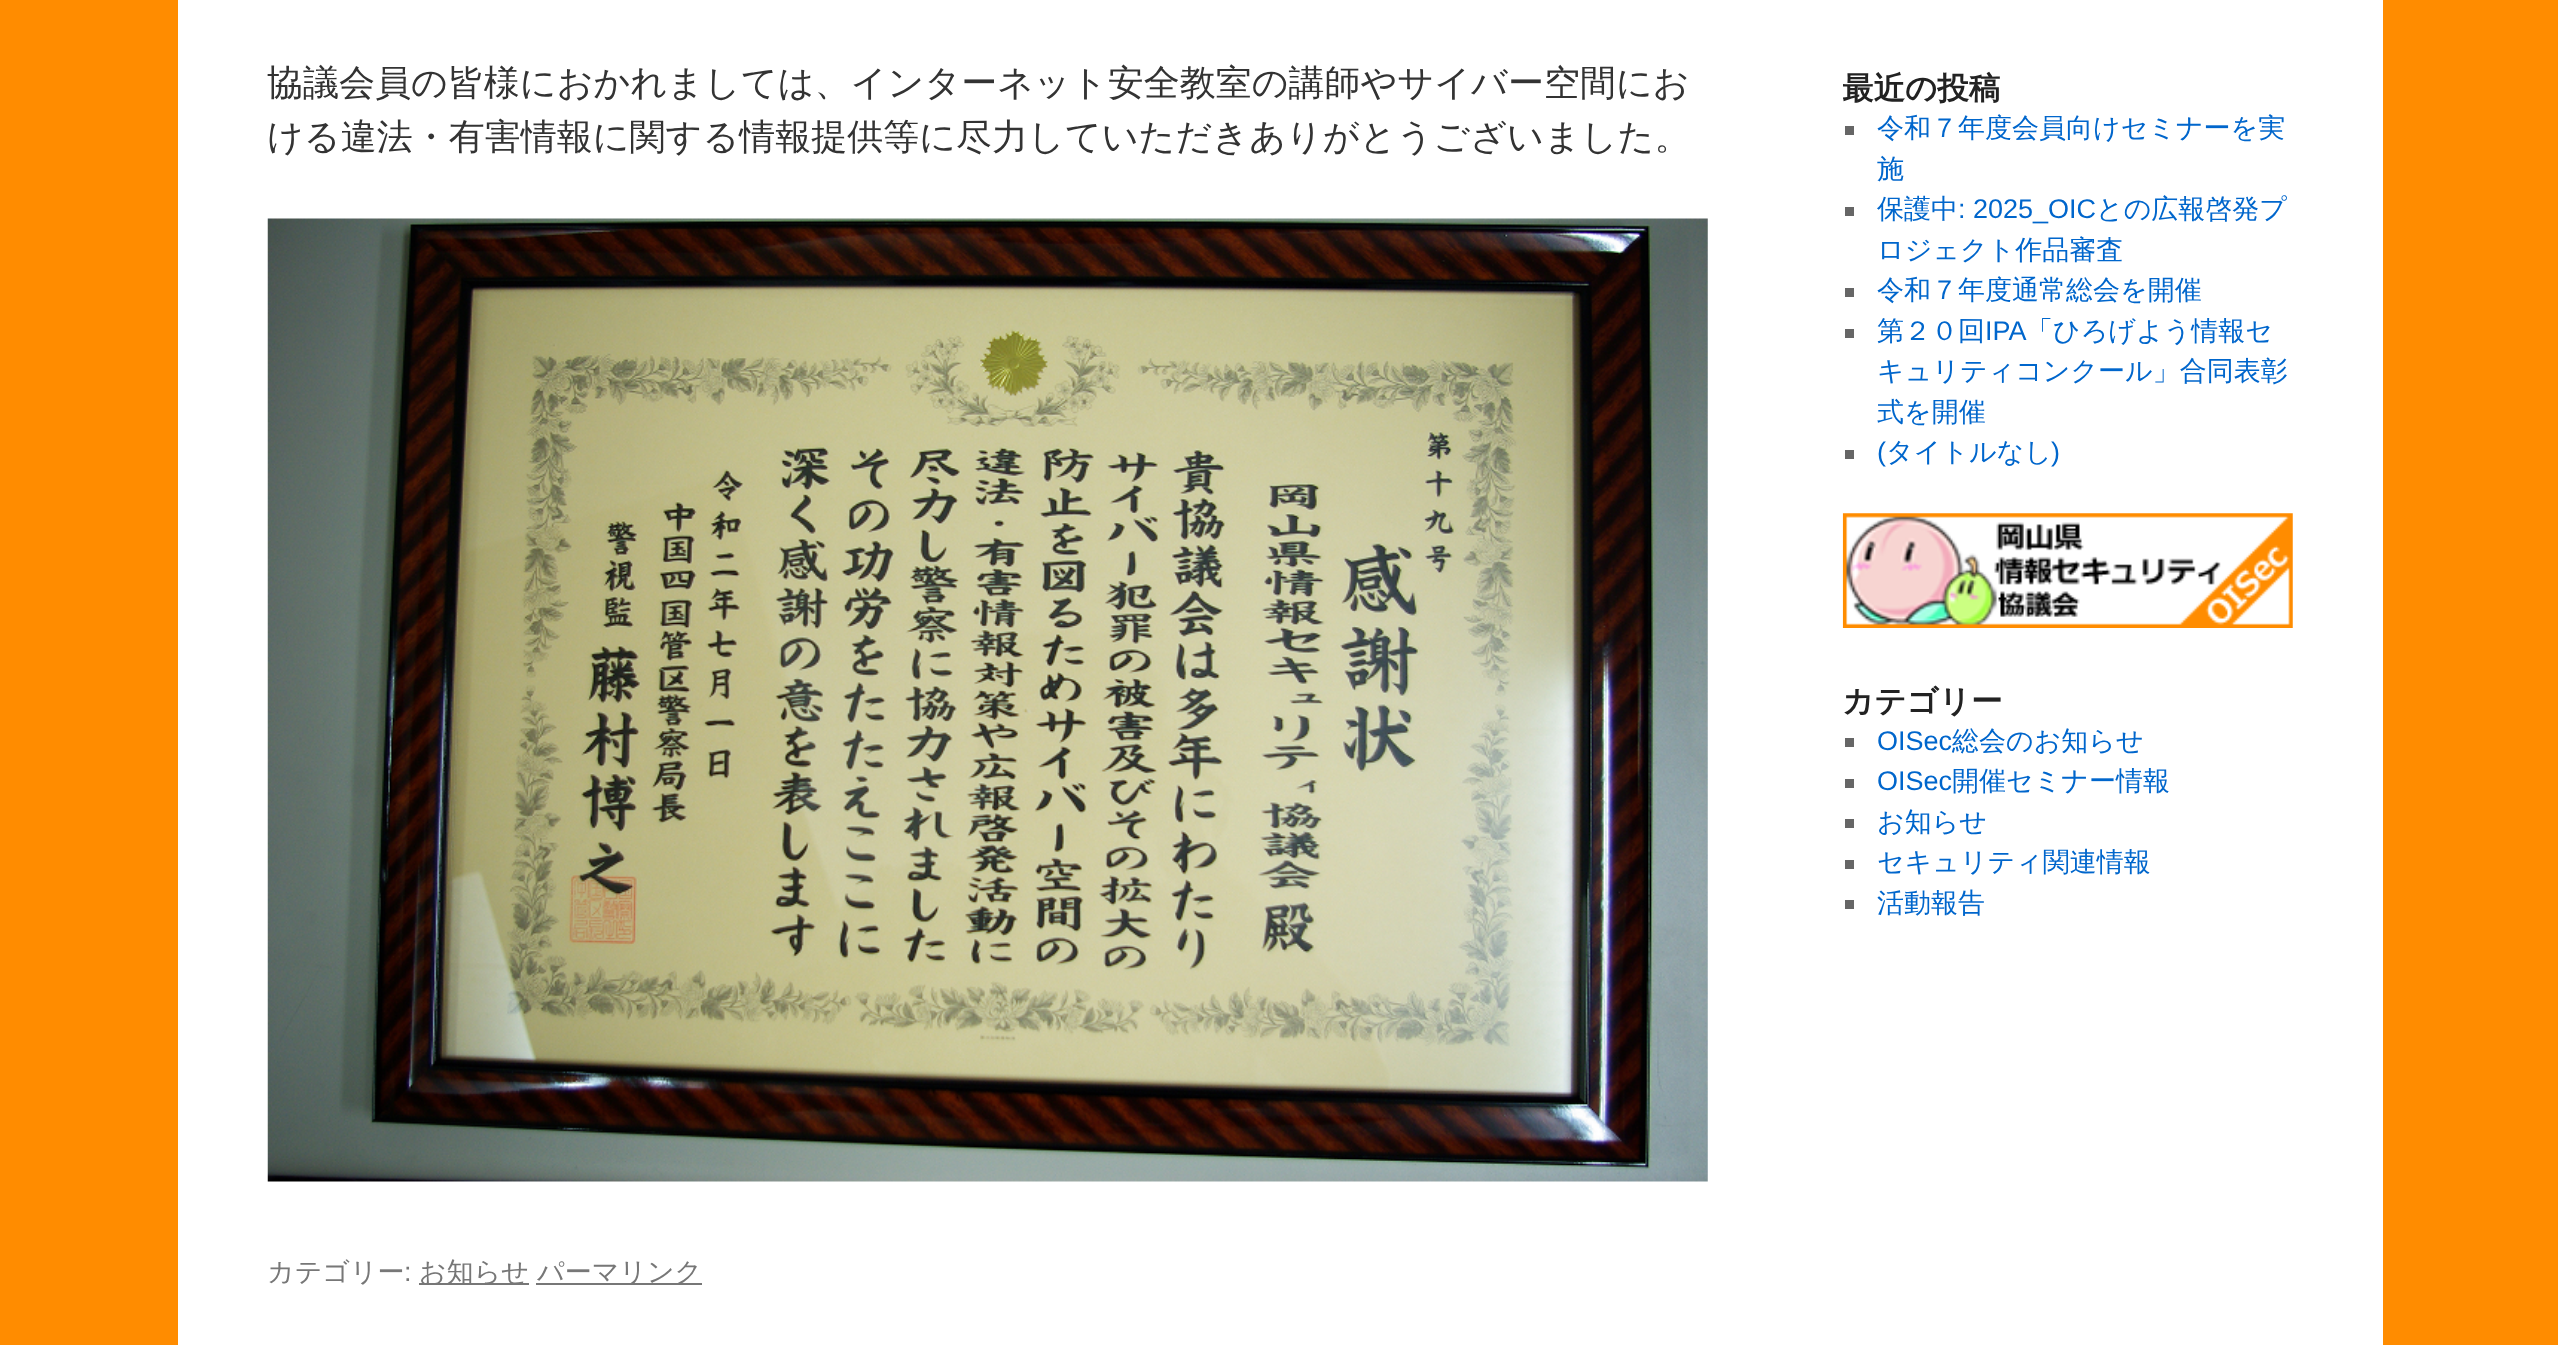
async function draw(canvas) {
  canvas.width = 2558;
  canvas.height = 1345;
  const ctx = canvas.getContext('2d');
  ctx.miterLimit = 4;
  ctx.fontKerning = 'normal';
  function label(s, x, y, font, color) {
    ctx.font = font;
    ctx.fillStyle = color;
    ctx.fillText(s, x, y);
  }
  function rect(x, y, w, h, color) {
    ctx.fillStyle = color;
    ctx.fillRect(x, y, w, h);
  }
  async function image(src, x, y, w, h) {
    const img = new Image();
    img.src = src;
    await img.decode();
    ctx.drawImage(img, x, y, w, h);
  }

  rect(0, 0, 2558, 1345, '#ff8c00');
  rect(178, 0, 2205, 1345, '#fff');
  label('協議会員の皆様におかれましては、インターネット安全教室の講師やサイバー空間にお', 267, 95, '500 36px WenQuanYi Zen Hei', '#333');
  label('ける違法・有害情報に関する情報提供等に尽力していただきありがとうございました。', 267, 149, '500 36px WenQuanYi Zen Hei', '#333');
  await image('assets/img1.png', 267, 218, 1441, 964);
  label('カテゴリー', 267, 1281, '500 27px WenQuanYi Zen Hei', '#777');
  label(':', 404, 1281, '27px Liberation Sans', '#777');
  rect(419, 1283, 110, 2, '#777');
  label('お知らせ', 419, 1281, '500 27px WenQuanYi Zen Hei', '#777');
  rect(536, 1283, 166, 2, '#777');
  label('パーマリンク', 537, 1281, '500 27px WenQuanYi Zen Hei', '#777');
  ctx.save();
  ctx.beginPath();
  ctx.rect(1843, 0, 495, 963);
  ctx.clip();
  label('最近の投稿', 1842, 99, 'bold 31.5px WenQuanYi Zen Hei', '#222');
  ctx.restore();
  rect(1845, 126, 9, 9, '#666');
  label('令和７年度会員向けセミナーを実', 1877, 137, '500 27px WenQuanYi Zen Hei', '#06c');
  label('施', 1877, 178, '500 27px WenQuanYi Zen Hei', '#06c');
  rect(1845, 207, 9, 9, '#666');
  label('保護中', 1877, 218, '500 27px WenQuanYi Zen Hei', '#06c');
  label(': 2025_OIC', 1958, 218, '27px Liberation Sans', '#06c');
  label('との広報啓発プ', 2096, 218, '500 27px WenQuanYi Zen Hei', '#06c');
  label('ロジェクト作品審査', 1877, 259, '500 27px WenQuanYi Zen Hei', '#06c');
  rect(1845, 288, 9, 9, '#666');
  label('令和７年度通常総会を開催', 1877, 299, '500 27px WenQuanYi Zen Hei', '#06c');
  rect(1845, 329, 9, 9, '#666');
  label('第２０回', 1877, 340, '500 27px WenQuanYi Zen Hei', '#06c');
  label('IPA', 1985, 340, '27px Liberation Sans', '#06c');
  label('「ひろげよう情報セ', 2026, 340, '500 27px WenQuanYi Zen Hei', '#06c');
  label('キュリティコンクール」合同表彰', 1877, 380, '500 27px WenQuanYi Zen Hei', '#06c');
  label('式を開催', 1877, 421, '500 27px WenQuanYi Zen Hei', '#06c');
  rect(1845, 450, 9, 9, '#666');
  label('(', 1877, 461, '27px Liberation Sans', '#06c');
  label('タイトルなし', 1886, 461, '500 27px WenQuanYi Zen Hei', '#06c');
  label(')', 2051, 461, '27px Liberation Sans', '#06c');
  await image('assets/img2.png', 1842, 513, 451, 115);
  label('カテゴリー', 1842, 712, 'bold 31.5px WenQuanYi Zen Hei', '#222');
  rect(1845, 738, 9, 9, '#666');
  label('OISec', 1877, 750, '27px Liberation Sans', '#06c');
  label('総会のお知らせ', 1952, 750, '500 27px WenQuanYi Zen Hei', '#06c');
  rect(1845, 779, 9, 9, '#666');
  label('OISec', 1877, 790, '27px Liberation Sans', '#06c');
  label('開催セミナー情報', 1952, 790, '500 27px WenQuanYi Zen Hei', '#06c');
  rect(1845, 819, 9, 9, '#666');
  label('お知らせ', 1877, 831, '500 27px WenQuanYi Zen Hei', '#06c');
  rect(1845, 860, 9, 9, '#666');
  label('セキュリティ関連情報', 1877, 871, '500 27px WenQuanYi Zen Hei', '#06c');
  rect(1845, 900, 9, 9, '#666');
  label('活動報告', 1877, 912, '500 27px WenQuanYi Zen Hei', '#06c');
}

draw(document.querySelector('canvas'));
